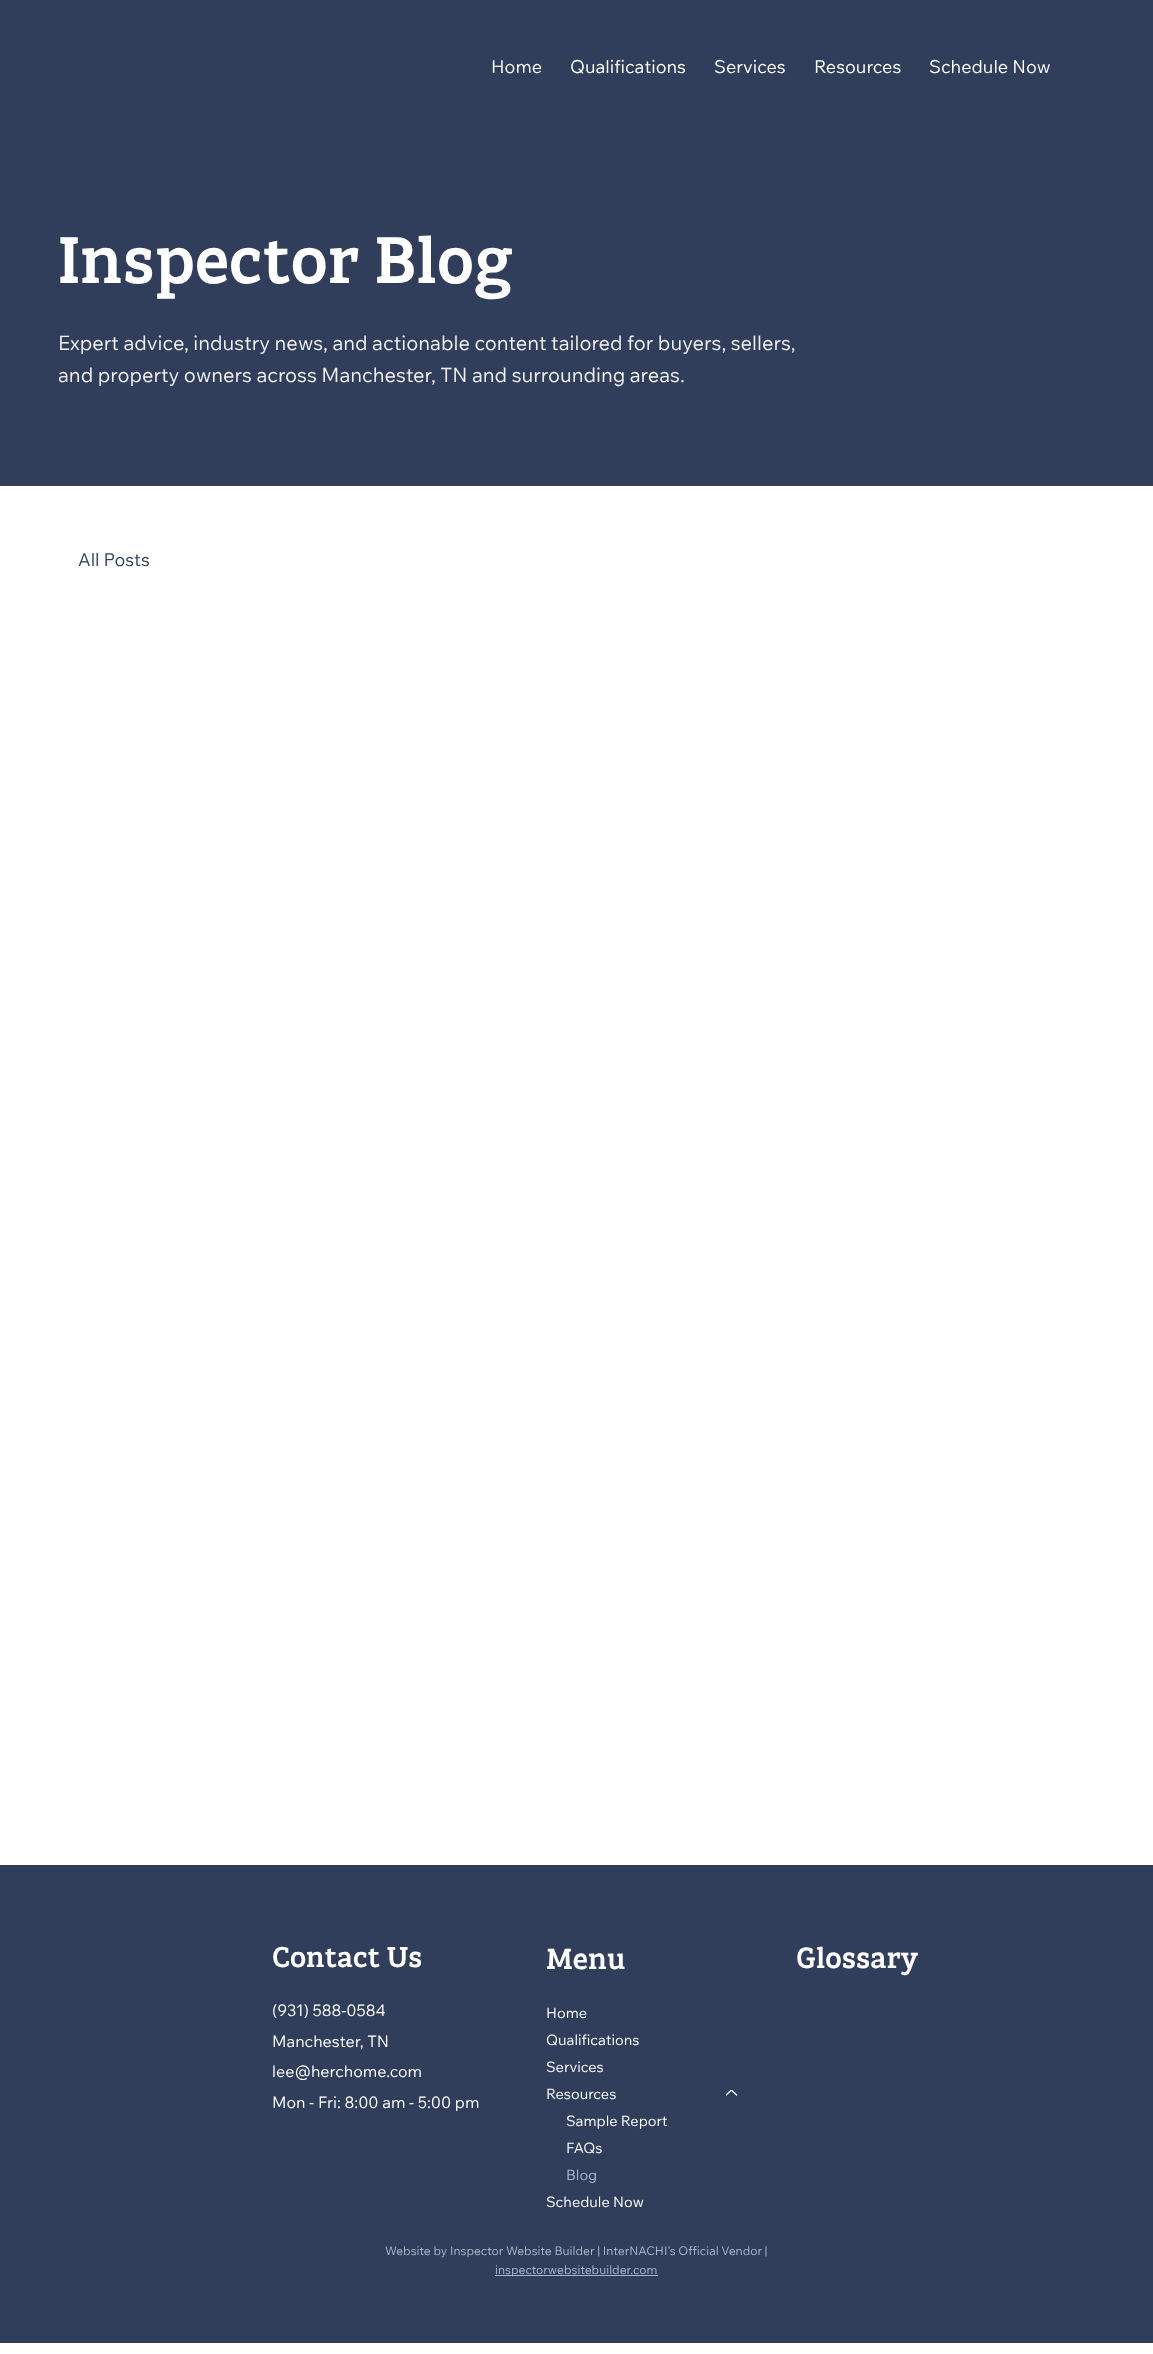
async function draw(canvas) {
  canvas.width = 1153;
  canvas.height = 2354;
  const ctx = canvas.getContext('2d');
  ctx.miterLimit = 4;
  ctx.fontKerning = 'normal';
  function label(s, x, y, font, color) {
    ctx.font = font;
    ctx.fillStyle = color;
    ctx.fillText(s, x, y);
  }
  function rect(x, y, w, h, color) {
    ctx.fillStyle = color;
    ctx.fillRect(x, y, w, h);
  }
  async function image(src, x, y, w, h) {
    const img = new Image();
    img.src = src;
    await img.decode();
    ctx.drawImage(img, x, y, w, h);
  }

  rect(0, 0, 1153, 2354, '#fff');
  rect(0, 0, 1153, 486, '#313e5b');
  label('Home', 491, 73, '18px Wix Madefor Text', '#fff');
  label('Qualifications', 570, 73, '18px Wix Madefor Text', '#fff');
  label('Services', 714, 73, '18px Wix Madefor Text', '#fff');
  label('Resources', 814, 73, '18px Wix Madefor Text', '#fff');
  label('Schedule Now', 929, 73, '18px Wix Madefor Text', '#fff');
  label('Inspector Blog', 58, 283, 'bold 63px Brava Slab', '#fff');
  label('Expert advice, industry news, and actionable content tailored for buyers, sellers,', 58, 350, '20px Wix Madefor Text', '#f0f0f0');
  label('and property owners across Manchester, TN and surrounding areas.', 58, 382, '20px Wix Madefor Text', '#f0f0f0');
  label('All Posts', 78, 566, '18px Wix Madefor Text', '#313e5b');
  rect(0, 1865, 1153, 478, '#313e5b');
  label('Contact Us', 272, 1967, 'bold 27.5px Brava Slab', '#fff');
  label('(931) 588-0584', 272, 2016, '16px Wix Madefor Text', '#fff');
  label('Manchester, TN', 272, 2047, '16px Wix Madefor Text', '#fff');
  label('lee@herchome.com', 272, 2077, '16px Wix Madefor Text', '#fff');
  label('Mon - Fri: 8:00 am - 5:00 pm', 272, 2108, '16px Wix Madefor Text', '#fff');
  label('Menu', 546, 1969, 'bold 28px Brava Slab', '#fff');
  label('Home', 546, 2018, '14.5px Wix Madefor Text', '#fff');
  label('Qualifications', 546, 2045, '14.5px Wix Madefor Text', '#fff');
  label('Services', 546, 2072, '14.5px Wix Madefor Text', '#fff');
  label('Resources', 546, 2099, '14.5px Wix Madefor Text', '#fff');
  await image('assets/img1.png', 726, 2090, 12, 6);
  label('Sample Report', 566, 2126, '14.5px Wix Madefor Text', '#fff');
  label('FAQs', 566, 2153, '14.5px Wix Madefor Text', '#fff');
  label('Blog', 566, 2180, '14.5px Wix Madefor Text', '#a9b9ca');
  label('Schedule Now', 546, 2207, '14.5px Wix Madefor Text', '#fff');
  label('Glossary', 796, 1968, 'bold 28px Brava Slab', '#fff');
  label('Website by Inspector Website Builder | InterNACHI\'s Official Vendor |', 385, 2255, '12px Wix Madefor Text', '#a9b9ca');
  rect(495, 2275, 163, 1, '#a9b9ca');
  label('inspectorwebsitebuilder.com', 495, 2274, '12px Wix Madefor Text', '#a9b9ca');
}

draw(document.querySelector('canvas'));
